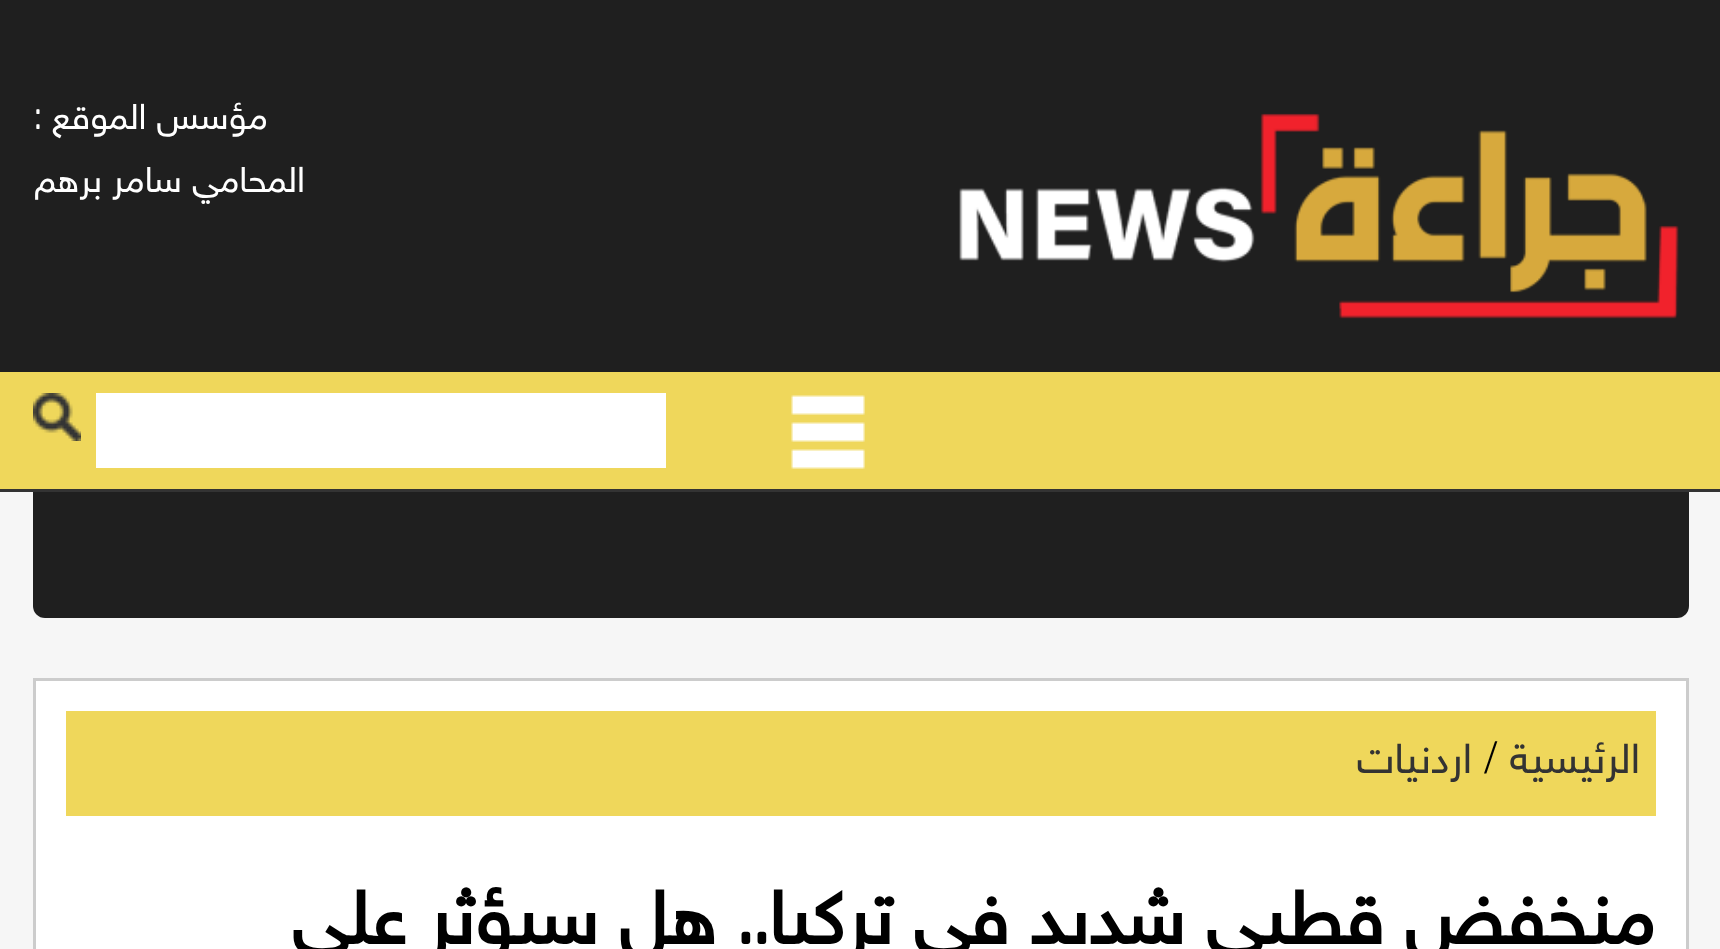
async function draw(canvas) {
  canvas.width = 1720;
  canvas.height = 949;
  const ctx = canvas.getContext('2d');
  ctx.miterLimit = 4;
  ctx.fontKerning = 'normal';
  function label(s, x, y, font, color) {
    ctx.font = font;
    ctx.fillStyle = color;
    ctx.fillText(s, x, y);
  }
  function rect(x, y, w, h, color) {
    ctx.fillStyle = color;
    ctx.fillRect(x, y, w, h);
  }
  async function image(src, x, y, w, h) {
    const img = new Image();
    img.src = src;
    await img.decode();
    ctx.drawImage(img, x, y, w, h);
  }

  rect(0, 0, 1720, 949, '#f6f6f6');
  rect(0, 0, 1720, 372, '#1f1f1f');
  await image('assets/img1.png', 959, 113, 720, 206);
  ctx.direction = 'rtl';
  label('مؤسس الموقع', 268, 129, '36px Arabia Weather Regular', '#fff');
  ctx.direction = 'ltr';
  label(':', 34, 129, '36px Arabia Weather Regular', '#fff');
  ctx.direction = 'rtl';
  label('المحامي سامر برهم', 305, 192, '36px Arabia Weather Regular', '#fff');
  rect(0, 372, 1720, 117, '#efd75b');
  rect(0, 489, 1720, 3, '#333');
  await image('assets/img2.png', 791, 395, 74, 74);
  rect(96, 393, 570, 75, '#fff');
  await image('assets/img3.png', 33, 393, 48, 48);
  ctx.fillStyle = '#1f1f1f';
  ctx.beginPath();
  ctx.roundRect(33, 492, 1656, 126, [0, 0, 12, 12]);
  ctx.fill();
  ctx.fillStyle = '#fff';
  ctx.beginPath();
  ctx.rect(34.5, 679.5, 1653, 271);
  ctx.fill();
  ctx.strokeStyle = '#ccc';
  ctx.lineWidth = 3;
  ctx.stroke();
  rect(66, 711, 1590, 105, '#efd75b');
  label('الرئيسية', 1640, 773, '42px Arabia Weather Regular', '#333');
  ctx.direction = 'ltr';
  label('/', 1484, 773, '48px Liberation Serif', '#000');
  ctx.direction = 'rtl';
  label('اردنيات', 1472, 773, '42px Arabia Weather Regular', '#333');
  label('منخفض قطبي شديد في تركيا.. هل سيؤثر على', 1655, 944, 'bold 75px Arabia Weather Regular', '#000');
}

draw(document.querySelector('canvas'));
